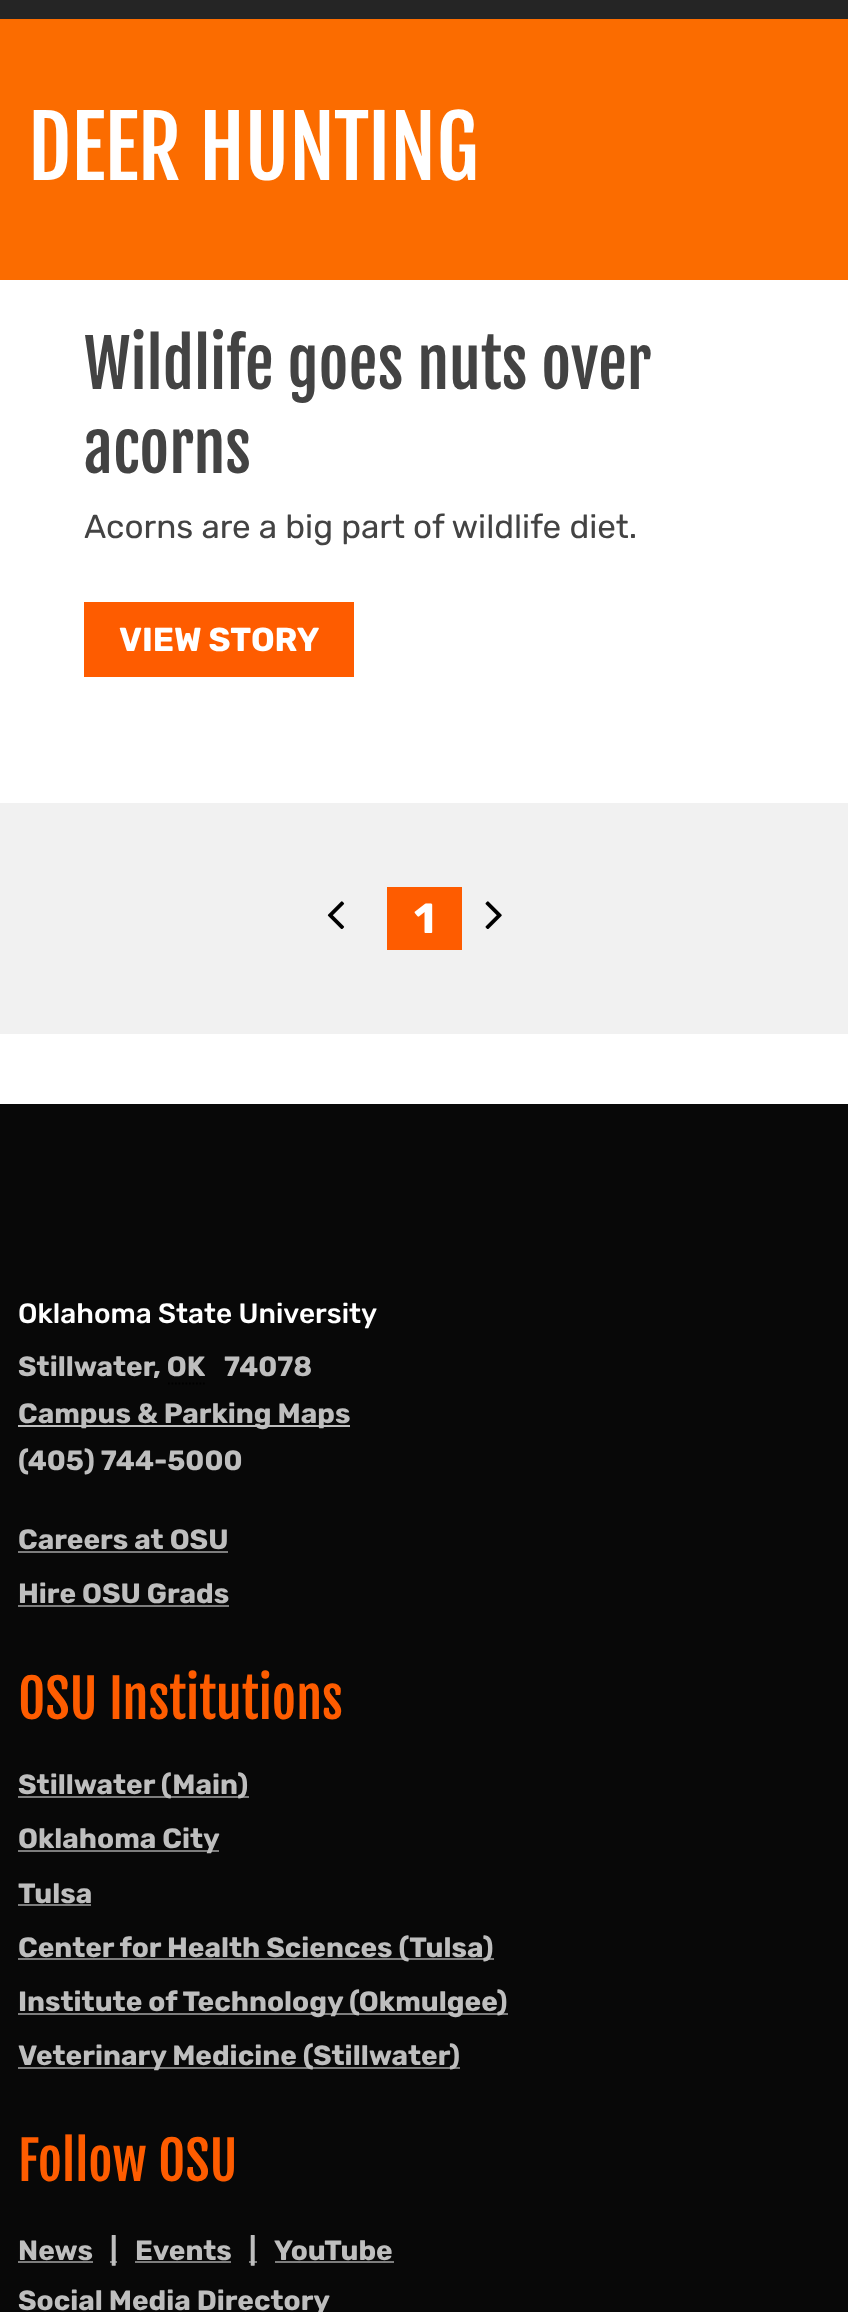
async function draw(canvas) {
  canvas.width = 848;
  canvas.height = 2312;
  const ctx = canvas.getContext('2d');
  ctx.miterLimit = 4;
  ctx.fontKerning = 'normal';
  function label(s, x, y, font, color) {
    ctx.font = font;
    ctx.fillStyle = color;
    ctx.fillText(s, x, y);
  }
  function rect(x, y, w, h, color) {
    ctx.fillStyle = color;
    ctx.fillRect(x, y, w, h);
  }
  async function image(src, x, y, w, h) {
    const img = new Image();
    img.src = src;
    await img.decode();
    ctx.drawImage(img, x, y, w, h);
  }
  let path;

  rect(0, 0, 848, 2312, '#fff');
  rect(0, 0, 848, 19, '#252525');
  rect(0, 19, 848, 261, '#fb6c00');
  label('DEER HUNTING', 28, 180, '84px Fjalla One', '#fff');
  label('Wildlife goes nuts over', 84, 389, '64.75px Fjalla One', '#434343');
  label('acorns', 84, 473, '64.75px Fjalla One', '#434343');
  label('Acorns are a big part of wildlife diet.', 84, 538, '33.25px Rubik', '#434343');
  rect(84, 602, 270, 75, '#fe5c00');
  label('VIEW STORY', 119, 651, 'bold 33.25px Rubik', '#fff');
  rect(0, 803, 848, 231, '#f1f1f1');
  await image('assets/img1.png', 327, 901, 18, 28);
  rect(387, 887, 75, 63, '#fe5c00');
  label('1', 414, 933, 'bold 42px Rubik', '#fff');
  await image('assets/img2.png', 485, 901, 17, 28);
  rect(0, 1104, 848, 1208, '#080808');
  label('Oklahoma State University', 18, 1323, '500 28px Rubik', '#fff');
  label('Stillwater', 18, 1376, 'bold 28px Rubik', '#bebebe');
  label(', OK', 153, 1376, 'bold 28px Rubik', '#bebebe');
  label('74078', 224, 1376, 'bold 28px Rubik', '#bebebe');
  path = new Path2D('M168 1383.5H206.5');
  ctx.strokeStyle = '#000';
  ctx.lineWidth = 1.8;
  ctx.setLineDash([1.75, 1.75]);
  ctx.stroke(path);
  rect(18, 1425, 332, 2, '#bebebe');
  label('Campus & Parking Maps', 18, 1423, 'bold 28px Rubik', '#bebebe');
  label('(405) 744-5000', 18, 1470, 'bold 28px Rubik', '#bebebe');
  label('Careers at OSU', 18, 1549, 'bold 28px Rubik', '#bebebe');
  rect(18, 1551, 210, 2, '#7d7d7d');
  label('Hire OSU Grads', 18, 1603, 'bold 28px Rubik', '#bebebe');
  rect(18, 1605, 211, 2, '#7d7d7d');
  label('OSU Institutions', 18, 1719, '52.5px Fjalla One', '#fe5c00');
  rect(18, 1796, 231, 2, '#7d7d7d');
  label('Stillwater (Main)', 18, 1794, 'bold 28px Rubik', '#bebebe');
  rect(18, 1850, 201, 2, '#7d7d7d');
  label('Oklahoma City', 18, 1848, 'bold 28px Rubik', '#bebebe');
  label('Tulsa', 18, 1903, 'bold 28px Rubik', '#bebebe');
  rect(18, 1904, 73, 2, '#7d7d7d');
  rect(18, 1958, 476, 2, '#7d7d7d');
  label('Center for Health Sciences (Tulsa)', 18, 1957, 'bold 28px Rubik', '#bebebe');
  rect(18, 2013, 490, 2, '#7d7d7d');
  label('Institute of Technology (Okmulgee)', 18, 2011, 'bold 28px Rubik', '#bebebe');
  rect(18, 2067, 442, 2, '#7d7d7d');
  label('Veterinary Medicine (Stillwater)', 18, 2065, 'bold 28px Rubik', '#bebebe');
  label('Follow OSU', 18, 2181, '52.5px Fjalla One', '#fe5c00');
  label('News', 18, 2260, 'bold 28px Rubik', '#bebebe');
  rect(18, 2261, 75, 2, '#7d7d7d');
  rect(110, 2261, 7, 2, '#7d7d7d');
  label('|', 110, 2260, 'bold 28px Rubik', '#bebebe');
  label('Events', 135, 2260, 'bold 28px Rubik', '#bebebe');
  rect(135, 2261, 96, 2, '#7d7d7d');
  rect(249, 2261, 8, 2, '#7d7d7d');
  label('|', 249, 2260, 'bold 28px Rubik', '#bebebe');
  label('YouTube', 274, 2260, 'bold 28px Rubik', '#bebebe');
  rect(275, 2261, 119, 2, '#7d7d7d');
  label('Social Media Directory', 18, 2310, 'bold 28px Rubik', '#bebebe');
}

draw(document.querySelector('canvas'));
